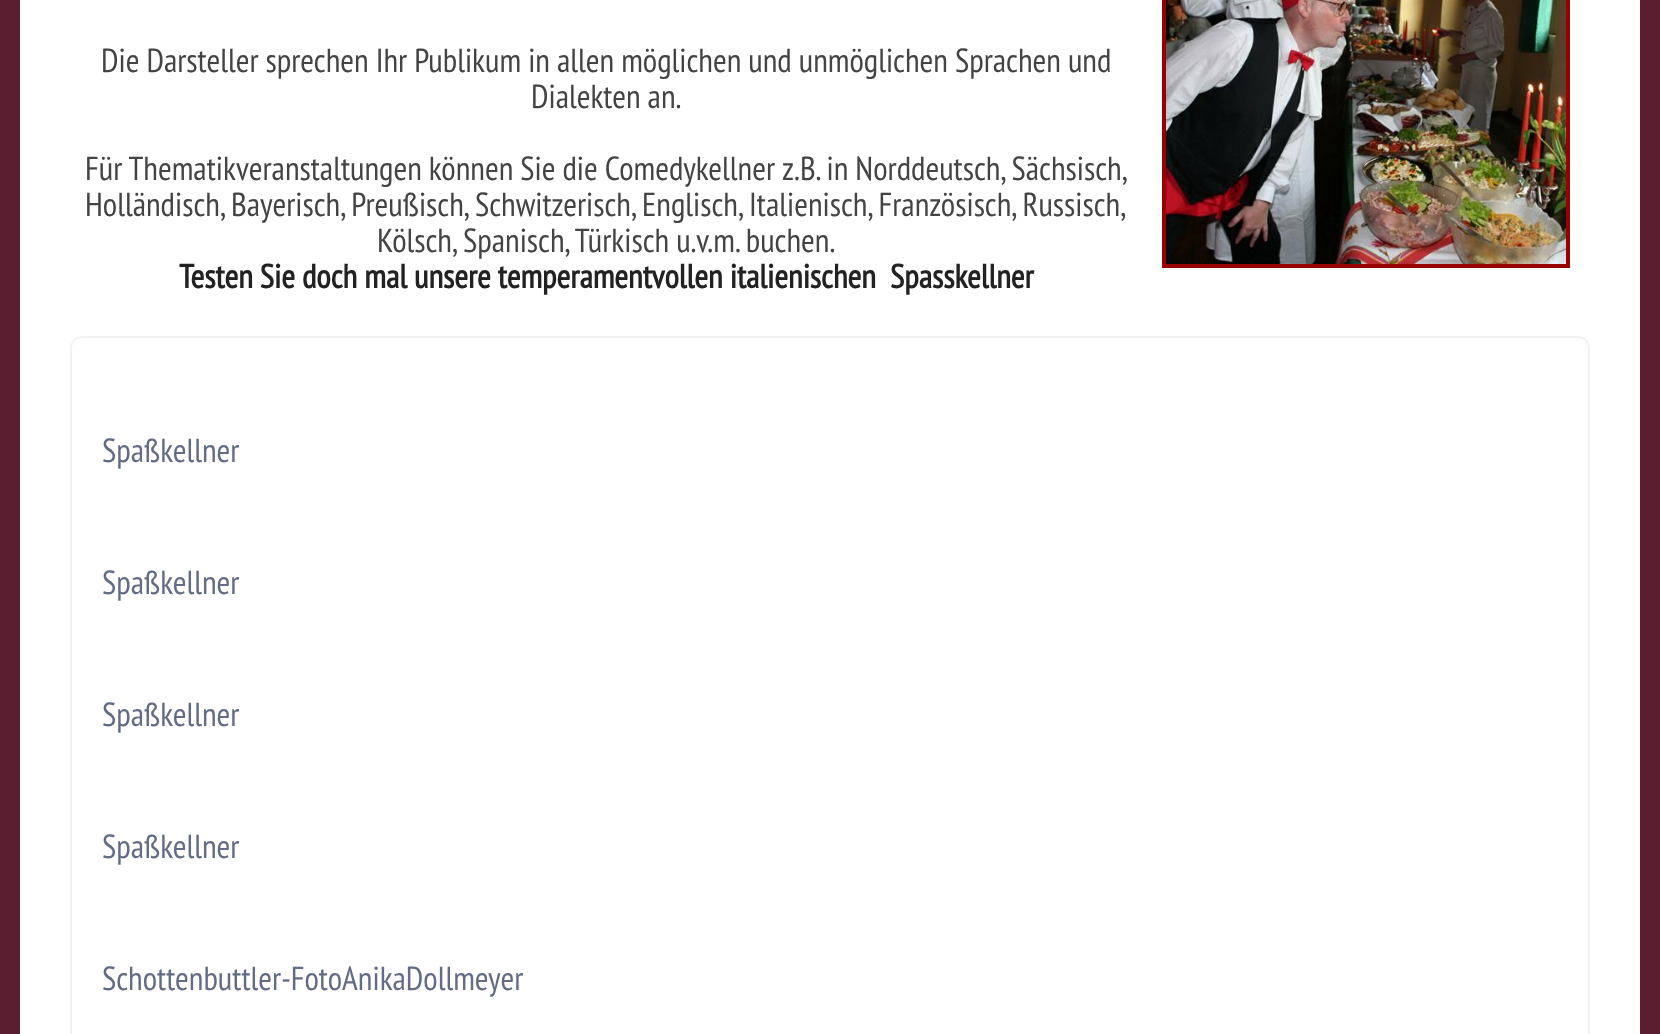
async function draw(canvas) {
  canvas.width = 1660;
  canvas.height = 1034;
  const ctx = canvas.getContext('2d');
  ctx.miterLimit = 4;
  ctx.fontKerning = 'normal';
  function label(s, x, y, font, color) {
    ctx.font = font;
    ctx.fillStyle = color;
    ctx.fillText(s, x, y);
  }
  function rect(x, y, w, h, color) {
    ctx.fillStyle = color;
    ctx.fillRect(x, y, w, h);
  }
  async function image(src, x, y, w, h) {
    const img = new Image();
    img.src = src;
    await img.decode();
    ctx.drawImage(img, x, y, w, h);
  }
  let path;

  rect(0, 0, 1660, 1034, '#fff');
  await image('assets/img1.png', 0, 0, 1660, 1034);
  rect(20, 0, 1620, 1034, '#fff');
  label('Die Darsteller sprechen Ihr Publikum in allen möglichen und unmöglichen Sprachen und', 101, 72, '32px PT Sans Narrow', '#444');
  ctx.strokeStyle = '#900';
  ctx.lineWidth = 4;
  ctx.strokeRect(1164, -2, 404, 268);
  await image('assets/img2.png', 1166, 0, 400, 264);
  label('Dialekten an.', 531, 108, '32px PT Sans Narrow', '#444');
  label('Für Thematikveranstaltungen können Sie die Comedykellner z.B. in Norddeutsch, Sächsisch,', 85, 180, '32px PT Sans Narrow', '#444');
  label('Holländisch, Bayerisch, Preußisch, Schwitzerisch, Englisch, Italienisch, Französisch, Russisch,', 85, 216, '32px PT Sans Narrow', '#444');
  label('Kölsch, Spanisch, Türkisch u.v.m. buchen.', 377, 252, '32px PT Sans Narrow', '#444');
  label('Testen Sie doch mal unsere temperamentvollen italienischen  Spasskellner', 179, 288, 'bold 32px PT Sans Narrow', '#222');
  path = new Path2D('M74 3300C72 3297.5 71 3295 71 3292V348C71 345 72 342.5 74 340C76.5 338 79 337 82 337H1578C1581 337 1583.5 338 1586 340C1588 342.5 1589 345 1589 348V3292C1589 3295 1588 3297.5 1586 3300');
  ctx.strokeStyle = '#0000000d';
  ctx.lineWidth = 2;
  ctx.stroke(path);
  label('Spaßkellner', 102, 462, '32px PT Sans Narrow', '#636c85');
  label('Spaßkellner', 102, 594, '32px PT Sans Narrow', '#636c85');
  label('Spaßkellner', 102, 726, '32px PT Sans Narrow', '#636c85');
  label('Spaßkellner', 102, 858, '32px PT Sans Narrow', '#636c85');
  label('Schottenbuttler-FotoAnikaDollmeyer', 102, 990, '32px PT Sans Narrow', '#636c85');
}

draw(document.querySelector('canvas'));
